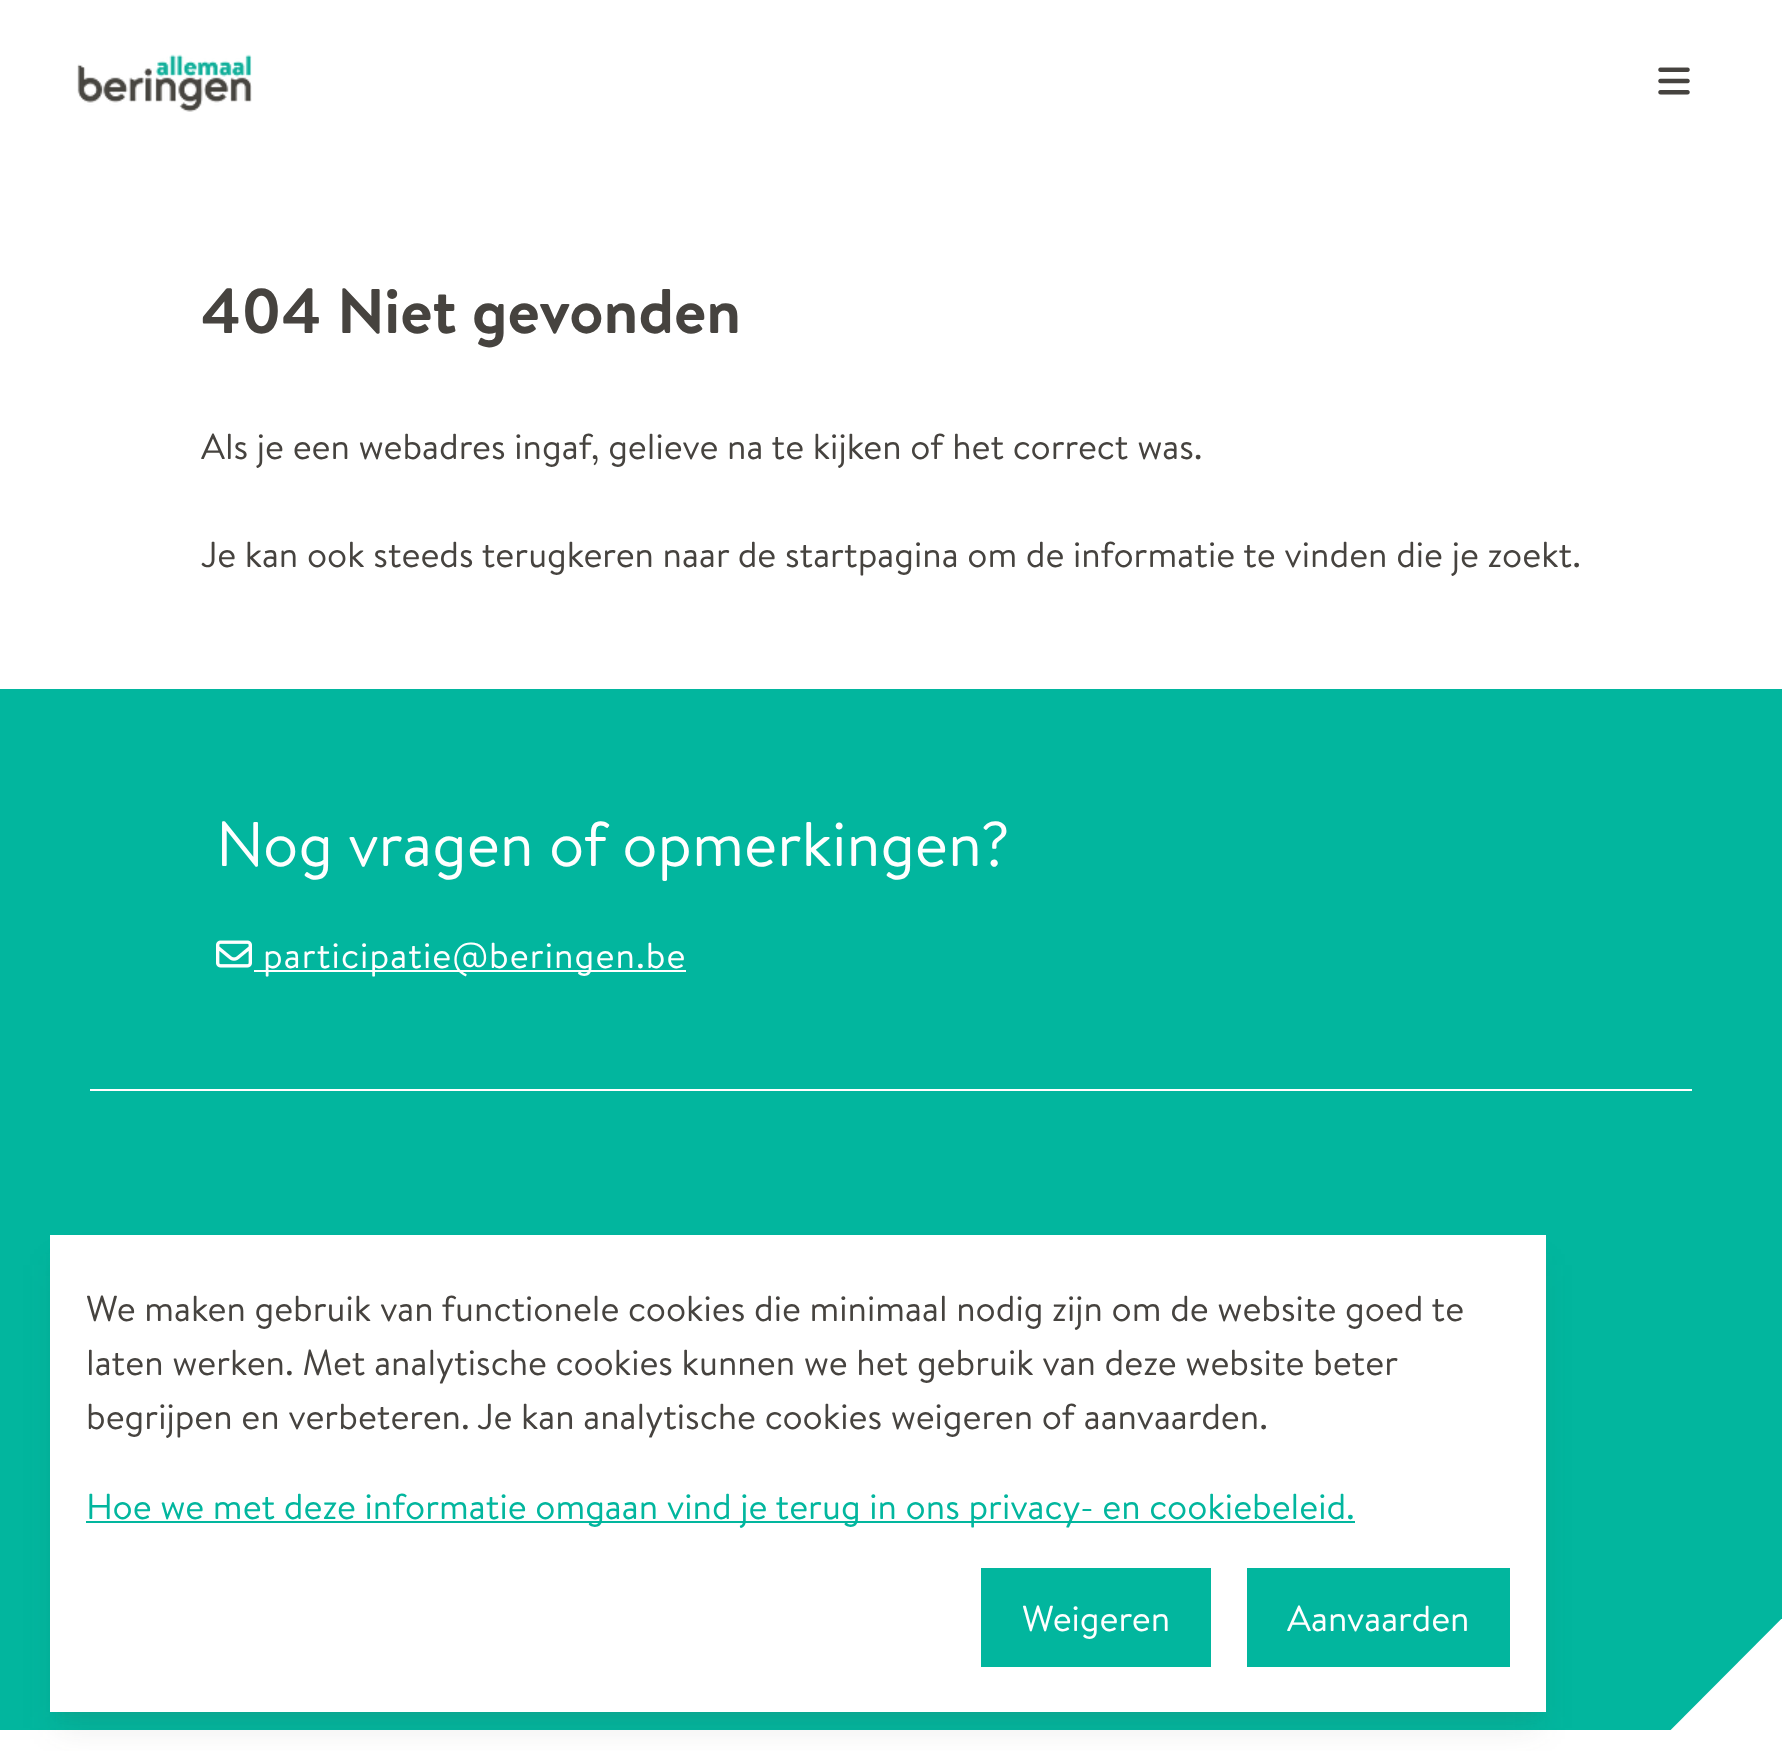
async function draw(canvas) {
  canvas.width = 1782;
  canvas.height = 1751;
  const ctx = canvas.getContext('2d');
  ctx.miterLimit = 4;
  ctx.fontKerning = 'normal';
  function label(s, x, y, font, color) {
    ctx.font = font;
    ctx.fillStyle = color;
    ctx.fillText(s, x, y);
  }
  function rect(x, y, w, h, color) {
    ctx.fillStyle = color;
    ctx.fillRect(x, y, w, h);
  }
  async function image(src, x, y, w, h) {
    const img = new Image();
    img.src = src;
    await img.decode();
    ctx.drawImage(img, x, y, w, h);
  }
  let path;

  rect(0, 0, 1782, 1751, '#fff');
  await image('assets/img1.png', 77, 54, 175, 58);
  await image('assets/img2.png', 1658, 67, 32, 28);
  label('404 Niet gevonden', 201, 333, 'bold 63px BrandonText', '#46433f');
  label('Als je een webadres ingaf, gelieve na te kijken of het correct was.', 201, 459, '36px Brandon Text', '#46433f');
  label('Je kan ook steeds terugkeren naar de startpagina om de informatie te vinden die je zoekt.', 201, 567, '36px Brandon Text', '#46433f');
  rect(0, 689, 1782, 1041, '#02b69e');
  label('Nog vragen of opmerkingen?', 216, 866, '63px Brandon Text', '#fff');
  await image('assets/img3.png', 216, 940, 36, 28);
  rect(254, 970, 432, 2, '#fff');
  ctx.letterSpacing = '1.1px';
  label('participatie@beringen.be', 263, 968, '36px Brandon Text', '#fff');
  rect(90, 1089, 1602, 2, '#fff');
  ctx.save();
  ctx.beginPath();
  ctx.rect(0, 689, 1782, 1041);
  ctx.clip();
  path = new Path2D('M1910 1490L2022 1602L1654 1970L1542 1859Z');
  ctx.fill(path);
  ctx.restore();
  ctx.fillStyle = '#46433f1a';
  ctx.filter = 'blur(7px)';
  ctx.beginPath();
  ctx.rect(59, 1253, 1478, 459);
  ctx.fill();
  ctx.filter = 'none';
  ctx.filter = 'blur(17px)';
  ctx.beginPath();
  ctx.rect(56, 1265, 1483, 463);
  ctx.fill();
  ctx.filter = 'none';
  rect(50, 1235, 1496, 477, '#fff');
  ctx.letterSpacing = '0px';
  label('We maken gebruik van functionele cookies die minimaal nodig zijn om de website goed te', 86, 1321, '36px Brandon Text', '#46433f');
  label('laten werken. Met analytische cookies kunnen we het gebruik van deze website beter', 86, 1375, '36px Brandon Text', '#46433f');
  label('begrijpen en verbeteren. Je kan analytische cookies weigeren of aanvaarden.', 86, 1429, '36px Brandon Text', '#46433f');
  rect(86, 1521, 1269, 2, '#02b69e');
  label('Hoe we met deze informatie omgaan vind je terug in ons privacy- en cookiebeleid.', 86, 1519, '36px Brandon Text', '#02b69e');
  rect(981, 1568, 230, 99, '#02b69e');
  label('Weigeren', 1022, 1631, '36px Brandon Text', '#fff');
  rect(1247, 1568, 263, 99, '#02b69e');
  label('Aanvaarden', 1287, 1631, '36px Brandon Text', '#fff');
}

draw(document.querySelector('canvas'));
